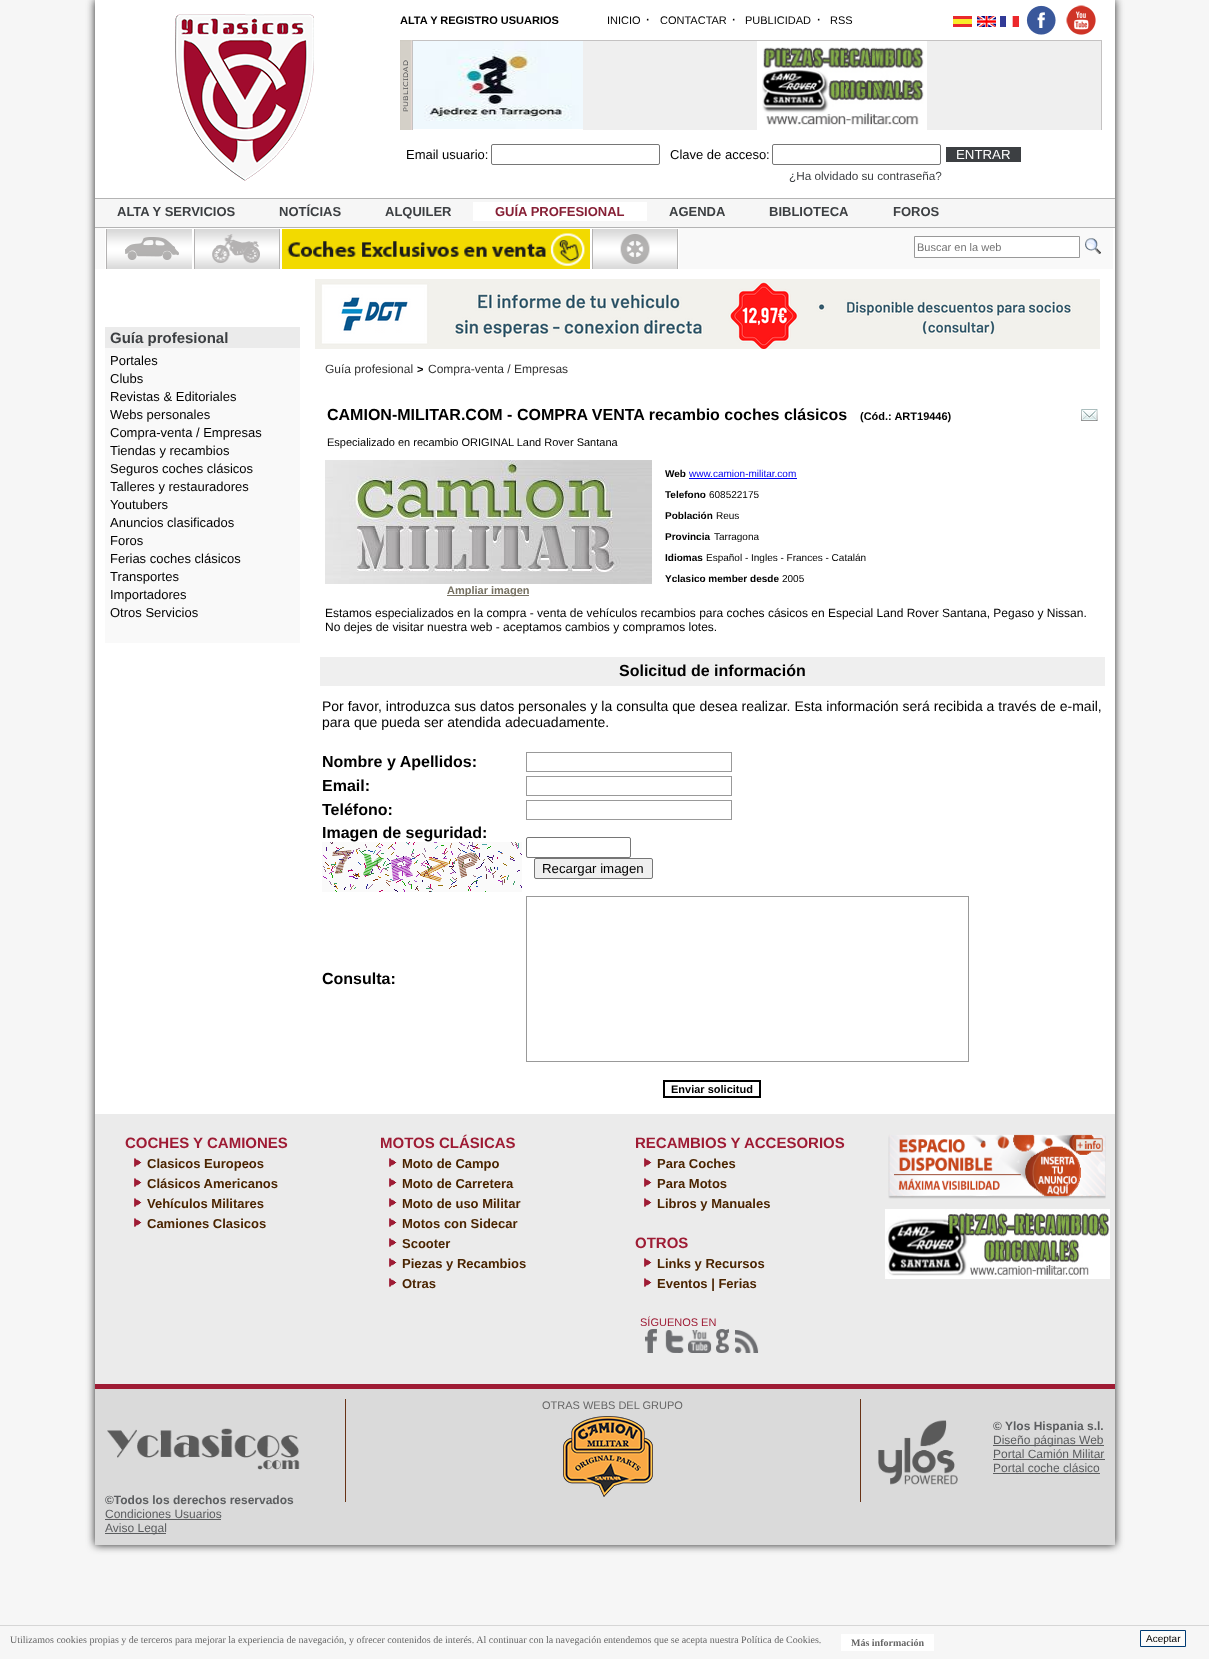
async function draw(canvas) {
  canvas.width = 1209;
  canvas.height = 1659;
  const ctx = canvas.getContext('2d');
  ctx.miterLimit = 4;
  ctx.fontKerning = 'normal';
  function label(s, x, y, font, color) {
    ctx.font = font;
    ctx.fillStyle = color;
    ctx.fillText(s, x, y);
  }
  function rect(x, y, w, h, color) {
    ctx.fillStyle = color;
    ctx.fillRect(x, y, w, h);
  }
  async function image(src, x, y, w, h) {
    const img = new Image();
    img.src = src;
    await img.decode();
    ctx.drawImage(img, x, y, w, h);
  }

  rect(0, 0, 1209, 1659, '#f6f6f6');
  ctx.fillStyle = '#222';
  ctx.filter = 'blur(4px)';
  ctx.beginPath();
  ctx.rect(95, 0, 1020, 1545);
  ctx.fill();
  ctx.filter = 'none';
  rect(95, 0, 1020, 1114, '#fff');
  await image('assets/img1.png', 175, 14, 139, 167);
  label('ALTA Y REGISTRO USUARIOS', 400, 24, 'bold 11px Liberation Sans', '#000');
  label('INICIO', 607, 24, '11px Liberation Sans', '#000');
  label('·', 645, 24, '16px Liberation Sans', '#000');
  label('CONTACTAR', 660, 24, '11px Liberation Sans', '#000');
  label('·', 731, 24, '16px Liberation Sans', '#000');
  label('PUBLICIDAD', 745, 24, '11px Liberation Sans', '#000');
  label('·', 816, 24, '16px Liberation Sans', '#000');
  label('RSS', 830, 24, '11px Liberation Sans', '#000');
  await image('assets/img2.png', 953, 16, 19, 11);
  await image('assets/img3.png', 977, 16, 19, 11);
  await image('assets/img4.png', 1000, 16, 19, 11);
  await image('assets/img5.png', 1026, 5, 30, 30);
  await image('assets/img6.png', 1066, 5, 30, 30);
  await image('assets/img7.png', 400, 40, 12, 90);
  ctx.save();
  ctx.beginPath();
  ctx.rect(412, 40, 690, 90);
  ctx.clip();
  ctx.strokeStyle = '#c4c2c2';
  ctx.strokeRect(412.5, 40.5, 689, 91);
  ctx.restore();
  rect(583, 41, 174, 89, '#efefef');
  await image('assets/img8.png', 413, 41, 170, 88);
  rect(927, 41, 174, 89, '#efefef');
  await image('assets/img9.png', 762, 47, 162, 78);
  label('Email usuario:', 406, 159, '13px Liberation Sans', '#000');
  ctx.beginPath();
  ctx.roundRect(491.5, 144.5, 168, 20, 1.5);
  ctx.strokeStyle = '#767676';
  ctx.stroke();
  label('Clave de acceso:', 670, 159, '13px Liberation Sans', '#000');
  ctx.beginPath();
  ctx.roundRect(772.5, 144.5, 168, 20, 1.5);
  ctx.stroke();
  label('¿Ha olvidado su contraseña?', 789, 180, '11.75px Liberation Sans', '#3c3f42');
  rect(946, 147, 75, 15, '#3c3f42');
  label('ENTRAR', 956, 159, '13.25px Liberation Sans', '#fff');
  rect(95, 199, 1020, 28, '#f6f6f6');
  rect(95, 198, 1020, 1, '#b4b4b4');
  rect(95, 227, 1020, 1, '#b4b4b4');
  label('ALTA Y SERVICIOS', 117, 216, 'bold 13px Liberation Sans', '#3c3f42');
  label('NOTÍCIAS', 279, 216, 'bold 13px Liberation Sans', '#3c3f42');
  label('ALQUILER', 385, 216, 'bold 13px Liberation Sans', '#3c3f42');
  rect(473, 202, 174, 19, '#fff');
  label('GUÍA PROFESIONAL', 495, 216, 'bold 13px Liberation Sans', '#872036');
  label('AGENDA', 669, 216, 'bold 13px Liberation Sans', '#3c3f42');
  label('BIBLIOTECA', 769, 216, 'bold 13px Liberation Sans', '#3c3f42');
  label('FOROS', 893, 216, 'bold 13px Liberation Sans', '#3c3f42');
  rect(95, 228, 1018, 41, '#f9f9f9');
  await image('assets/img10.png', 106, 229, 86, 40);
  ctx.strokeStyle = '#fff';
  ctx.strokeRect(105.5, 228.5, 87, 41);
  await image('assets/img11.png', 194, 229, 86, 40);
  ctx.strokeRect(193.5, 228.5, 87, 41);
  await image('assets/img12.png', 282, 229, 308, 40);
  ctx.strokeRect(281.5, 228.5, 309, 41);
  await image('assets/img13.png', 592, 229, 86, 40);
  ctx.strokeRect(591.5, 228.5, 87, 41);
  ctx.fillStyle = '#fff';
  ctx.beginPath();
  ctx.rect(914.5, 236.5, 165, 21);
  ctx.fill();
  ctx.strokeStyle = '#999';
  ctx.stroke();
  label('Buscar en la web', 917, 251, '11px Liberation Sans', '#757575');
  await image('assets/img14.png', 1085, 238, 16, 16);
  await image('assets/img15.png', 315, 279, 785, 70);
  rect(105, 348, 195, 295, '#f9f9f9');
  rect(105, 327, 195, 21, '#ebebeb');
  label('Guía profesional', 110, 343, 'bold 15px Liberation Sans', '#3c3f42');
  label('Portales', 110, 365, '13px Liberation Sans', '#000');
  label('Clubs', 110, 383, '13px Liberation Sans', '#000');
  label('Revistas & Editoriales', 110, 401, '13px Liberation Sans', '#000');
  label('Webs personales', 110, 419, '13px Liberation Sans', '#000');
  label('Compra-venta / Empresas', 110, 437, '13px Liberation Sans', '#000');
  label('Tiendas y recambios', 110, 455, '13px Liberation Sans', '#000');
  label('Seguros coches clásicos', 110, 473, '13px Liberation Sans', '#000');
  label('Talleres y restauradores', 110, 491, '13px Liberation Sans', '#000');
  label('Youtubers', 110, 509, '13px Liberation Sans', '#000');
  label('Anuncios clasificados', 110, 527, '13px Liberation Sans', '#000');
  label('Foros', 110, 545, '13px Liberation Sans', '#000');
  label('Ferias coches clásicos', 110, 563, '13px Liberation Sans', '#000');
  label('Transportes', 110, 581, '13px Liberation Sans', '#000');
  label('Importadores', 110, 599, '13px Liberation Sans', '#000');
  label('Otros Servicios', 110, 617, '13px Liberation Sans', '#000');
  label('Guía profesional', 325, 373, '12px Liberation Sans', '#333');
  label('>', 417, 373, 'bold 11px Liberation Sans', '#000');
  label('Compra-venta / Empresas', 428, 373, '12px Liberation Sans', '#333');
  label('CAMION-MILITAR.COM - COMPRA VENTA recambio coches clásicos', 327, 420, 'bold 16px Liberation Sans', '#000');
  label('(Cód.: ART19446)', 860, 420, 'bold 11px Liberation Sans', '#000');
  await image('assets/img16.png', 1081, 409, 17, 12);
  label('Especializado en recambio ORIGINAL Land Rover Santana', 327, 446, '11px Liberation Sans', '#000');
  label('Web', 665, 477, 'bold 10px Liberation Sans', '#000');
  label('www.camion-militar.com', 689, 477, '10px Liberation Sans', '#00e');
  rect(689, 478, 108, 1, '#00e');
  label('Telefono', 665, 498, 'bold 10px Liberation Sans', '#000');
  label('608522175', 709, 498, '10px Liberation Sans', '#000');
  label('Población', 665, 519, 'bold 10px Liberation Sans', '#000');
  label('Reus', 716, 519, '10px Liberation Sans', '#000');
  label('Provincia', 665, 540, 'bold 10px Liberation Sans', '#000');
  label('Tarragona', 714, 540, '10px Liberation Sans', '#000');
  label('Idiomas', 665, 561, 'bold 10px Liberation Sans', '#000');
  label('Español - Ingles - Frances - Catalán', 706, 561, '10px Liberation Sans', '#000');
  label('Yclasico member desde', 665, 582, 'bold 10px Liberation Sans', '#000');
  label('2005', 782, 582, '10px Liberation Sans', '#000');
  await image('assets/img17.png', 325, 460, 327, 124);
  rect(447, 595, 82, 1, '#767162');
  label('Ampliar imagen', 447, 594, 'bold 11px Liberation Sans', '#767162');
  label('Estamos especializados en la compra - venta de vehículos recambios para coches cásicos en Especial Land Rover Santana, Pegaso y Nissan.', 325, 617, '12px Liberation Sans', '#000');
  label('No dejes de visitar nuestra web - aceptamos cambios y compramos lotes.', 325, 631, '12px Liberation Sans', '#000');
  rect(320, 657, 785, 29, '#efefef');
  label('Solicitud de información', 619, 676, 'bold 16px Liberation Sans', '#000');
  label('Por favor, introduzca sus datos personales y la consulta que desea realizar. Esta información será recibida a través de e-mail,', 322, 711, '14px Liberation Sans', '#000');
  label('para que pueda ser atendida adecuadamente.', 322, 727, '14px Liberation Sans', '#000');
  label('Nombre y Apellidos:', 322, 767, 'bold 16px Liberation Sans', '#000');
  ctx.strokeRect(526.5, 752.5, 205, 19);
  label('Email:', 322, 791, 'bold 16px Liberation Sans', '#000');
  ctx.strokeRect(526.5, 776.5, 205, 19);
  label('Teléfono:', 322, 815, 'bold 16px Liberation Sans', '#000');
  ctx.strokeRect(526.5, 800.5, 205, 19);
  label('Imagen de seguridad:', 322, 838, 'bold 16px Liberation Sans', '#000');
  await image('assets/img18.png', 322, 842, 200, 50);
  ctx.beginPath();
  ctx.roundRect(526.5, 837.5, 104, 20, 1.5);
  ctx.strokeStyle = '#767676';
  ctx.stroke();
  ctx.fillStyle = '#efefef';
  ctx.beginPath();
  ctx.roundRect(534.5, 858.5, 118, 20, 1.5);
  ctx.fill();
  ctx.stroke();
  label('Recargar imagen', 542, 873, '13.25px Liberation Sans', '#000');
  label('Consulta:', 322, 984, 'bold 16px Liberation Sans', '#000');
  ctx.strokeStyle = '#999';
  ctx.strokeRect(526.5, 896.5, 442, 165);
  ctx.strokeStyle = '#000';
  ctx.lineWidth = 2;
  ctx.strokeRect(664, 1081, 96, 16);
  label('Enviar solicitud', 671, 1093, 'bold 11px Liberation Sans', '#000');
  rect(95, 1114, 1020, 270, '#ebebeb');
  label('COCHES Y CAMIONES', 125, 1148, 'bold 15px Liberation Sans', '#9e1b34');
  await image('assets/img19.png', 134, 1158, 8, 9);
  label('Clasicos Europeos', 147, 1168, 'bold 13px Liberation Sans', '#4a2400');
  await image('assets/img19.png', 134, 1178, 8, 9);
  label('Clásicos Americanos', 147, 1188, 'bold 13px Liberation Sans', '#4a2400');
  await image('assets/img19.png', 134, 1198, 8, 9);
  label('Vehículos Militares', 147, 1208, 'bold 13px Liberation Sans', '#4a2400');
  await image('assets/img19.png', 134, 1218, 8, 9);
  label('Camiones Clasicos', 147, 1228, 'bold 13px Liberation Sans', '#4a2400');
  label('MOTOS CLÁSICAS', 380, 1148, 'bold 15px Liberation Sans', '#9e1b34');
  await image('assets/img19.png', 389, 1158, 8, 9);
  label('Moto de Campo', 402, 1168, 'bold 13px Liberation Sans', '#4a2400');
  await image('assets/img19.png', 389, 1178, 8, 9);
  label('Moto de Carretera', 402, 1188, 'bold 13px Liberation Sans', '#4a2400');
  await image('assets/img19.png', 389, 1198, 8, 9);
  label('Moto de uso Militar', 402, 1208, 'bold 13px Liberation Sans', '#4a2400');
  await image('assets/img19.png', 389, 1218, 8, 9);
  label('Motos con Sidecar', 402, 1228, 'bold 13px Liberation Sans', '#4a2400');
  await image('assets/img19.png', 389, 1238, 8, 9);
  label('Scooter', 402, 1248, 'bold 13px Liberation Sans', '#4a2400');
  await image('assets/img19.png', 389, 1258, 8, 9);
  label('Piezas y Recambios', 402, 1268, 'bold 13px Liberation Sans', '#4a2400');
  await image('assets/img19.png', 389, 1278, 8, 9);
  label('Otras', 402, 1288, 'bold 13px Liberation Sans', '#4a2400');
  label('RECAMBIOS Y ACCESORIOS', 635, 1148, 'bold 15px Liberation Sans', '#9e1b34');
  await image('assets/img19.png', 644, 1158, 8, 9);
  label('Para Coches', 657, 1168, 'bold 13px Liberation Sans', '#4a2400');
  await image('assets/img19.png', 644, 1178, 8, 9);
  label('Para Motos', 657, 1188, 'bold 13px Liberation Sans', '#4a2400');
  await image('assets/img19.png', 644, 1198, 8, 9);
  label('Libros y Manuales', 657, 1208, 'bold 13px Liberation Sans', '#4a2400');
  label('OTROS', 635, 1248, 'bold 15px Liberation Sans', '#9e1b34');
  await image('assets/img19.png', 644, 1258, 8, 9);
  label('Links y Recursos', 657, 1268, 'bold 13px Liberation Sans', '#4a2400');
  await image('assets/img19.png', 644, 1278, 8, 9);
  label('Eventos | Ferias', 657, 1288, 'bold 13px Liberation Sans', '#4a2400');
  label('SÍGUENOS EN', 640, 1326, '11px Liberation Sans', '#9e1b34');
  await image('assets/img20.png', 645, 1329, 12, 24);
  await image('assets/img21.png', 665, 1330, 19, 23);
  await image('assets/img22.png', 688, 1330, 24, 23);
  await image('assets/img23.png', 716, 1329, 13, 24);
  await image('assets/img24.png', 735, 1330, 24, 23);
  await image('assets/img25.png', 888, 1134, 218, 65);
  await image('assets/img26.png', 885, 1209, 225, 70);
  rect(95, 1389, 1020, 156, '#dadada');
  rect(95, 1384, 1020, 5, '#9e1b34');
  rect(860, 1399, 1, 103, '#683215');
  rect(345, 1399, 1, 103, '#683215');
  label('OTRAS WEBS DEL GRUPO', 542, 1409, '11px Liberation Sans', '#666');
  await image('assets/img27.png', 563, 1416, 90, 81);
  await image('assets/img28.png', 878, 1420, 80, 65);
  label('© Ylos Hispania s.l.', 993, 1430, 'bold 12px Liberation Sans', '#5b5d5f');
  rect(993, 1445, 111, 1, '#5b5d5f');
  label('Diseño páginas Web', 993, 1444, '12px Liberation Sans', '#5b5d5f');
  label('Portal Camión Militar', 993, 1458, '12px Liberation Sans', '#5b5d5f');
  rect(993, 1459, 112, 1, '#5b5d5f');
  label('Portal coche clásico', 993, 1472, '12px Liberation Sans', '#5b5d5f');
  rect(993, 1473, 107, 1, '#5b5d5f');
  await image('assets/img29.png', 107, 1428, 193, 42);
  label('©Todos los derechos reservados', 105, 1504, 'bold 12px Liberation Sans', '#5b5d5f');
  label('Condiciones Usuarios', 105, 1518, '12px Liberation Sans', '#5b5d5f');
  rect(105, 1519, 116, 1, '#5b5d5f');
  rect(105, 1533, 61, 1, '#5b5d5f');
  label('Aviso Legal', 105, 1532, '12px Liberation Sans', '#5b5d5f');
  rect(0, 1625, 1209, 1, '#d6d6d6');
  label('Utilizamos cookies propias y de terceros para mejorar la experiencia de navegación, y ofrecer contenidos de interés. Al continuar con la navegación entendemos que se acepta nuestra Política de Cookies.', 10, 1643, '10px Liberation Serif', '#666');
  rect(841, 1634, 93, 17, '#fff');
  label('Más información', 851, 1646, 'bold 10px Liberation Serif', '#666');
  ctx.fillStyle = '#fcfcfb';
  ctx.beginPath();
  ctx.rect(1140.5, 1630.5, 45, 16);
  ctx.fill();
  ctx.strokeStyle = '#003c74';
  ctx.lineWidth = 1;
  ctx.stroke();
  label('Aceptar', 1146, 1642, '10px Liberation Sans', '#000');
}

draw(document.querySelector('canvas'));
